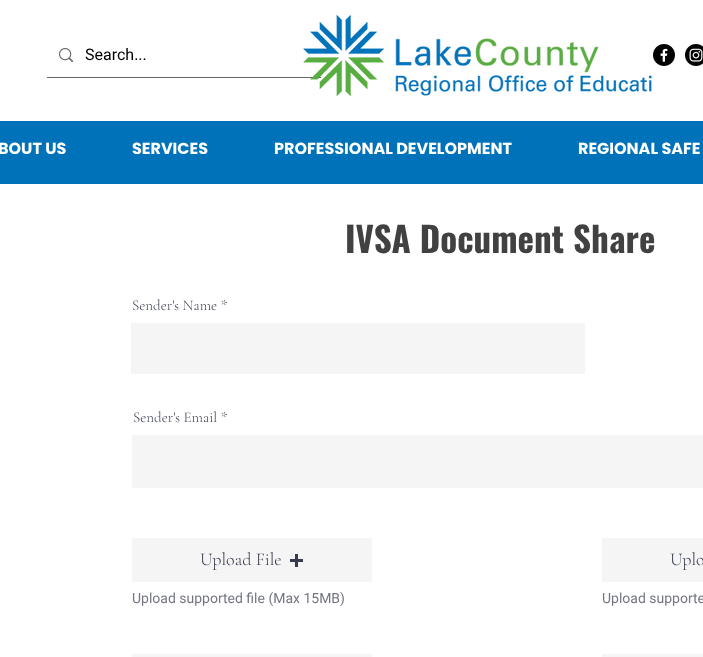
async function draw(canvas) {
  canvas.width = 703;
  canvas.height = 657;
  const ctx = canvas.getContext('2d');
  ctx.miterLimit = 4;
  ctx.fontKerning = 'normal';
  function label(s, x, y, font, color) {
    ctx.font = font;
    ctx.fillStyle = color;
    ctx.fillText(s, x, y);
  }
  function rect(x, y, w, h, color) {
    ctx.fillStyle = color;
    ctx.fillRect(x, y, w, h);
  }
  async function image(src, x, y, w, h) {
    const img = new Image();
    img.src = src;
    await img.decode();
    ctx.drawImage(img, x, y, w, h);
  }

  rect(0, 0, 703, 657, '#fff');
  rect(47, 77, 274, 1, '#666');
  await image('assets/img1.png', 59, 48, 14, 14);
  label('Search...', 85, 60, '16px Roboto', '#000');
  await image('assets/img2.png', 303, 15, 349, 82);
  await image('assets/img3.png', 653, 44, 22, 22);
  await image('assets/img4.png', 685, 44, 18, 22);
  rect(0, 121, 703, 63, '#0072ba');
  label('BOUT US', -2, 154, 'bold 16px Poppins', '#fff');
  label('SERVICES', 132, 154, 'bold 16px Poppins', '#fff');
  label('PROFESSIONAL DEVELOPMENT', 274, 154, 'bold 16px Poppins', '#fff');
  label('REGIONAL SAFE', 578, 154, 'bold 16px Poppins', '#fff');
  label('IVSA Document Share', 345, 253, 'bold 35px Oswald', '#414141');
  label('Sender\'s Name *', 132, 310, '300 15px Cormorant Garamond', '#373b4d');
  rect(131, 323, 454, 51, '#f5f5f5');
  label('Sender\'s Email *', 133, 422, '300 15px Cormorant Garamond', '#373b4d');
  rect(132, 435, 571, 53, '#f5f5f5');
  rect(132, 538, 240, 44, '#f5f5f5');
  label('Upload File', 200, 565, '300 18px Cormorant Garamond', '#373b4d');
  rect(295, 554, 3, 13, '#373b4d');
  rect(290, 559, 13, 3, '#373b4d');
  label('Upload supported file (Max 15MB)', 132, 603, '14px Roboto', '#737682');
  rect(602, 538, 101, 44, '#f5f5f5');
  label('Uplo', 670, 565, '300 18px Cormorant Garamond', '#373b4d');
  label('Upload supporte', 602, 603, '14px Roboto', '#737682');
  rect(132, 654, 240, 3, '#f5f5f5');
  rect(602, 654, 101, 3, '#f5f5f5');
}

draw(document.querySelector('canvas'));
